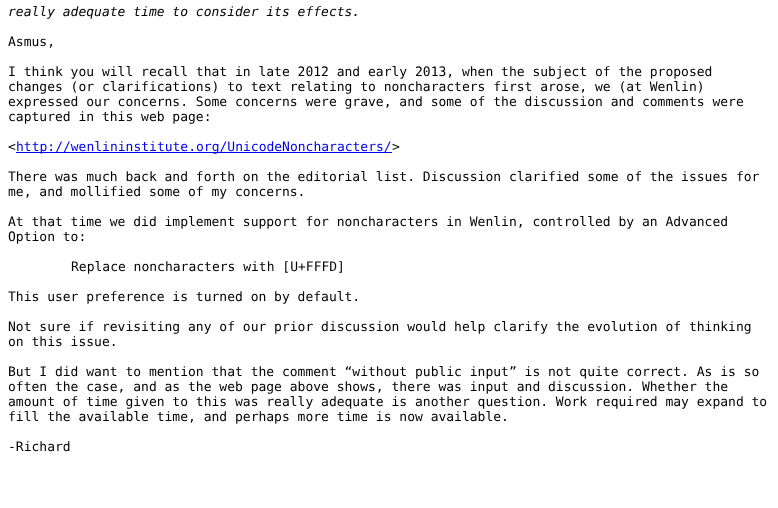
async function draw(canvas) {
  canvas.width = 778;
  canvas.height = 508;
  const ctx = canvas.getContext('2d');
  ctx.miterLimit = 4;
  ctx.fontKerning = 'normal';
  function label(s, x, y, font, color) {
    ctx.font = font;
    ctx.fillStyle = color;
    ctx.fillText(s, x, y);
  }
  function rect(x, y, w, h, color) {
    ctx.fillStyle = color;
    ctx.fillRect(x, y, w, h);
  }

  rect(0, 0, 778, 508, '#fff');
  label('really adequate time to consider its effects.', 8, 16, 'italic 13px DejaVu Sans Mono', '#000');
  label('Asmus,', 8, 46, '13px DejaVu Sans Mono', '#000');
  label('I think you will recall that in late 2012 and early 2013, when the subject of the proposed', 8, 76, '13px DejaVu Sans Mono', '#000');
  label('changes (or clarifications) to text relating to noncharacters first arose, we (at Wenlin)', 8, 91, '13px DejaVu Sans Mono', '#000');
  label('expressed our concerns. Some concerns were grave, and some of the discussion and comments were', 8, 106, '13px DejaVu Sans Mono', '#000');
  label('captured in this web page:', 8, 121, '13px DejaVu Sans Mono', '#000');
  label('<', 8, 151, '13px DejaVu Sans Mono', '#000');
  rect(16, 152, 376, 1, '#00e');
  label('http://wenlininstitute.org/UnicodeNoncharacters/', 16, 151, '13px DejaVu Sans Mono', '#00e');
  label('>', 392, 151, '13px DejaVu Sans Mono', '#000');
  label('There was much back and forth on the editorial list. Discussion clarified some of the issues for', 8, 181, '13px DejaVu Sans Mono', '#000');
  label('me, and mollified some of my concerns.', 8, 196, '13px DejaVu Sans Mono', '#000');
  label('At that time we did implement support for noncharacters in Wenlin, controlled by an Advanced', 8, 226, '13px DejaVu Sans Mono', '#000');
  label('Option to:', 8, 241, '13px DejaVu Sans Mono', '#000');
  label('Replace noncharacters with [U+FFFD]', 71, 271, '13px DejaVu Sans Mono', '#000');
  label('This user preference is turned on by default.', 8, 301, '13px DejaVu Sans Mono', '#000');
  label('Not sure if revisiting any of our prior discussion would help clarify the evolution of thinking', 8, 331, '13px DejaVu Sans Mono', '#000');
  label('on this issue.', 8, 346, '13px DejaVu Sans Mono', '#000');
  label('But I did want to mention that the comment “without public input” is not quite correct. As is so', 8, 376, '13px DejaVu Sans Mono', '#000');
  label('often the case, and as the web page above shows, there was input and discussion. Whether the', 8, 391, '13px DejaVu Sans Mono', '#000');
  label('amount of time given to this was really adequate is another question. Work required may expand to', 8, 406, '13px DejaVu Sans Mono', '#000');
  label('fill the available time, and perhaps more time is now available.', 8, 421, '13px DejaVu Sans Mono', '#000');
  label('-Richard', 8, 451, '13px DejaVu Sans Mono', '#000');
}

draw(document.querySelector('canvas'));
